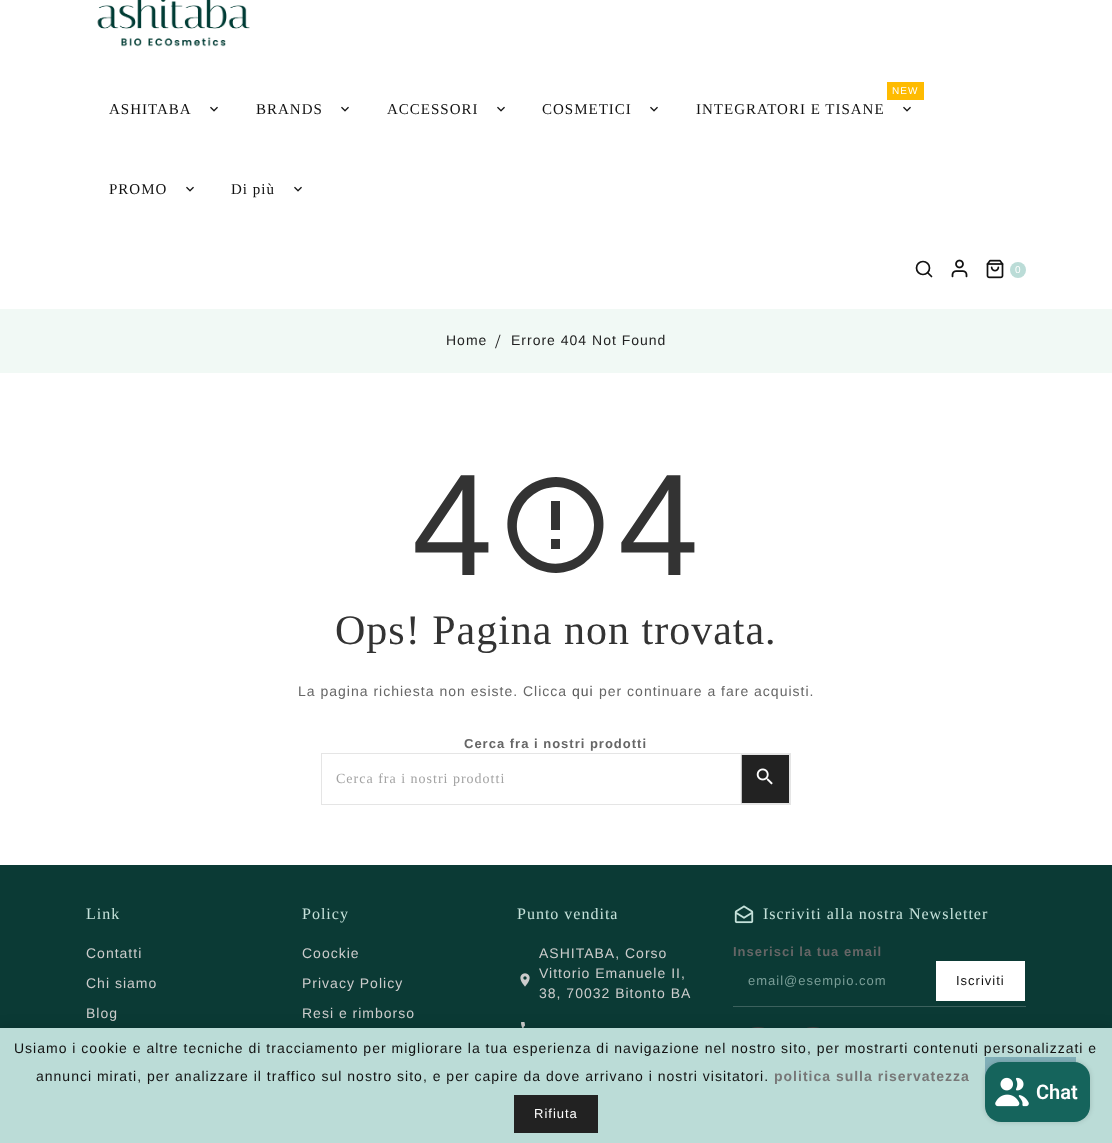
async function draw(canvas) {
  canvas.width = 1112;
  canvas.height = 1143;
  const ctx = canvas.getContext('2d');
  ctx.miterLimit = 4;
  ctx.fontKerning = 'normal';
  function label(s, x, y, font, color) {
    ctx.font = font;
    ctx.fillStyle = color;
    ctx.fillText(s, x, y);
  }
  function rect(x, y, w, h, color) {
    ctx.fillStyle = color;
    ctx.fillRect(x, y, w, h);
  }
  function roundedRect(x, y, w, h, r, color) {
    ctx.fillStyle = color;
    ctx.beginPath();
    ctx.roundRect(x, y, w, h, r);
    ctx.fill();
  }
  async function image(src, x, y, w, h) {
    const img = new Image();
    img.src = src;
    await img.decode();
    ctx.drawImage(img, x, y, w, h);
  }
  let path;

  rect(0, 0, 1112, 1143, '#fff');
  await image('assets/img1.png', 97, 0, 153, 47);
  ctx.letterSpacing = '1px';
  label('ASHITABA', 109, 114, '15px Liberation Serif', '#111');
  await image('assets/img2.png', 210, 106, 8, 6);
  label('BRANDS', 256, 114, '15px Liberation Serif', '#111');
  await image('assets/img2.png', 341, 106, 8, 6);
  label('ACCESSORI', 387, 114, '15px Liberation Serif', '#111');
  await image('assets/img2.png', 497, 106, 8, 6);
  label('COSMETICI', 542, 114, '15px Liberation Serif', '#111');
  await image('assets/img2.png', 650, 106, 8, 6);
  rect(887, 82, 37, 18, '#febb01');
  label('NEW', 892, 94, '10px Liberation Sans', '#fff');
  label('INTEGRATORI E TISANE', 696, 114, '15px Liberation Serif', '#111');
  await image('assets/img2.png', 903, 106, 8, 6);
  label('PROMO', 109, 194, '15px Liberation Serif', '#111');
  await image('assets/img2.png', 186, 186, 8, 6);
  label('Di più', 231, 194, '15px Liberation Serif', '#111');
  await image('assets/img2.png', 294, 186, 8, 6);
  ctx.beginPath();
  ctx.arc(923, 268, 6.5, 0, 2 * Math.PI);
  ctx.strokeStyle = '#111';
  ctx.lineWidth = 1.7;
  ctx.stroke();
  path = new Path2D('M931.5 276.5L928 273');
  ctx.lineCap = 'round';
  ctx.lineJoin = 'round';
  ctx.stroke(path);
  await image('assets/img3.png', 951, 259, 17, 19);
  await image('assets/img4.png', 986, 259, 18, 20);
  ctx.fillStyle = '#bbdcd7';
  ctx.beginPath();
  ctx.arc(1018, 270, 8, 0, 2 * Math.PI);
  ctx.fill();
  label('0', 1015, 273, '10px Liberation Sans', '#fff');
  rect(0, 309, 1112, 64, '#f1f9f5');
  label('Home', 446, 345, '14px Liberation Sans', '#222');
  label('/', 495, 348, '20px Liberation Serif', '#222');
  label('Errore 404 Not Found', 511, 345, '14px Liberation Sans', '#222');
  label('4', 412, 575, '145px Liberation Sans', '#333');
  path = new Path2D('M560 539H551V549H560ZM556 487C576 487 594 504 594 525C594 538 587 550 577 557C568 563 558 565 548 563C540 561 534 557 528 552C504 528 522 488 556 487ZM556 573C600 572 621 517 586 488C577 481 566 477 556 477C545 477 534 481 525 488C490 517 511 572 556 573ZM560 501H551V530H560Z');
  ctx.fill(path);
  label('4', 618, 575, '145px Liberation Sans', '#333');
  label('Ops! Pagina non trovata.', 335, 644, '42px Liberation Serif', '#333');
  label('La pagina richiesta non esiste. Clicca', 298, 696, '14px Liberation Sans', '#666');
  label('qui', 572, 696, '14px Liberation Sans', '#555');
  label('per continuare a fare acquisti.', 599, 696, '14px Liberation Sans', '#666');
  label('Cerca fra i nostri prodotti', 464, 748, 'bold 13px Liberation Sans', '#666');
  ctx.strokeStyle = '#e5e5e5';
  ctx.lineWidth = 1;
  ctx.lineJoin = 'miter';
  ctx.strokeRect(321.5, 753.5, 469, 51);
  label('Cerca fra i nostri prodotti', 336, 783, '14px Liberation Serif', '#a3a3a3');
  ctx.fillStyle = '#222';
  ctx.beginPath();
  ctx.rect(741.5, 754.5, 48, 49);
  ctx.fill();
  ctx.stroke();
  await image('assets/img5.png', 756, 768, 17, 17);
  rect(0, 865, 1112, 163, '#0b3a35');
  label('Link', 86, 919, '16px Liberation Serif', '#c5e1da');
  label('Contatti', 86, 958, '14px Liberation Sans', '#ccc');
  label('Chi siamo', 86, 988, '14px Liberation Sans', '#ccc');
  label('Blog', 86, 1018, '14px Liberation Sans', '#ccc');
  label('Policy', 302, 919, '16px Liberation Serif', '#c5e1da');
  label('Coockie', 302, 958, '14px Liberation Sans', '#ccc');
  label('Privacy Policy', 302, 988, '14px Liberation Sans', '#ccc');
  label('Resi e rimborso', 302, 1018, '14px Liberation Sans', '#ccc');
  label('Punto vendita', 517, 919, '16px Liberation Serif', '#c5e1da');
  await image('assets/img6.png', 520, 973, 10, 14);
  label('ASHITABA, Corso', 539, 958, '14px Liberation Sans', '#ccc');
  label('Vittorio Emanuele II,', 539, 978, '14px Liberation Sans', '#ccc');
  label('38, 70032 Bitonto BA', 539, 998, '14px Liberation Sans', '#ccc');
  await image('assets/img7.png', 521, 1022, 4, 6);
  await image('assets/img8.png', 734, 905, 20, 19);
  label('Iscriviti alla nostra Newsletter', 763, 919, '16px Liberation Serif', '#c5e1da');
  label('Inserisci la tua email', 733, 956, 'bold 13px Liberation Sans', '#666');
  rect(733, 1006, 293, 1, '#3c615d');
  label('email@esempio.com', 748, 985, '13px Liberation Sans', '#7b9e98');
  rect(936, 961, 89, 40, '#fff');
  label('Iscriviti', 956, 985, '13px Liberation Sans', '#111');
  ctx.beginPath();
  ctx.arc(758, 1052, 24.5, 0, 2 * Math.PI);
  ctx.strokeStyle = '#414141';
  ctx.stroke();
  ctx.beginPath();
  ctx.arc(813, 1052, 24.5, 0, 2 * Math.PI);
  ctx.stroke();
  ctx.fillStyle = '#00000033';
  ctx.filter = 'blur(7.5px)';
  ctx.beginPath();
  ctx.rect(0, 1030, 1112, 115);
  ctx.fill();
  ctx.filter = 'none';
  rect(0, 1028, 1112, 115, '#bbdcd7');
  label('Usiamo i cookie e altre tecniche di tracciamento per migliorare la tua esperienza di navigazione nel nostro sito, per mostrarti contenuti personalizzati e', 14, 1053, '14px Liberation Sans', '#111');
  label('annunci mirati, per analizzare il traffico sul nostro sito, e per capire da dove arrivano i nostri visitatori.', 36, 1081, '14px Liberation Sans', '#111');
  label('politica sulla riservatezza', 774, 1081, 'bold 14px Liberation Sans', '#777');
  rect(985, 1057, 91, 21, '#80afb8');
  rect(514, 1095, 84, 38, '#222');
  label('Rifiuta', 534, 1118, '13px Liberation Sans', '#fff');
  ctx.fillStyle = '#00000026';
  ctx.filter = 'blur(2.5px)';
  ctx.beginPath();
  ctx.roundRect(985, 1062, 105, 60, 16);
  ctx.fill();
  ctx.filter = 'none';
  roundedRect(985, 1062, 105, 60, 16, '#15645c');
  await image('assets/img9.png', 995, 1077, 34, 30);
  ctx.letterSpacing = '0px';
  label('Chat', 1036, 1099, '600 20px Roboto', '#fff');
}

draw(document.querySelector('canvas'));
